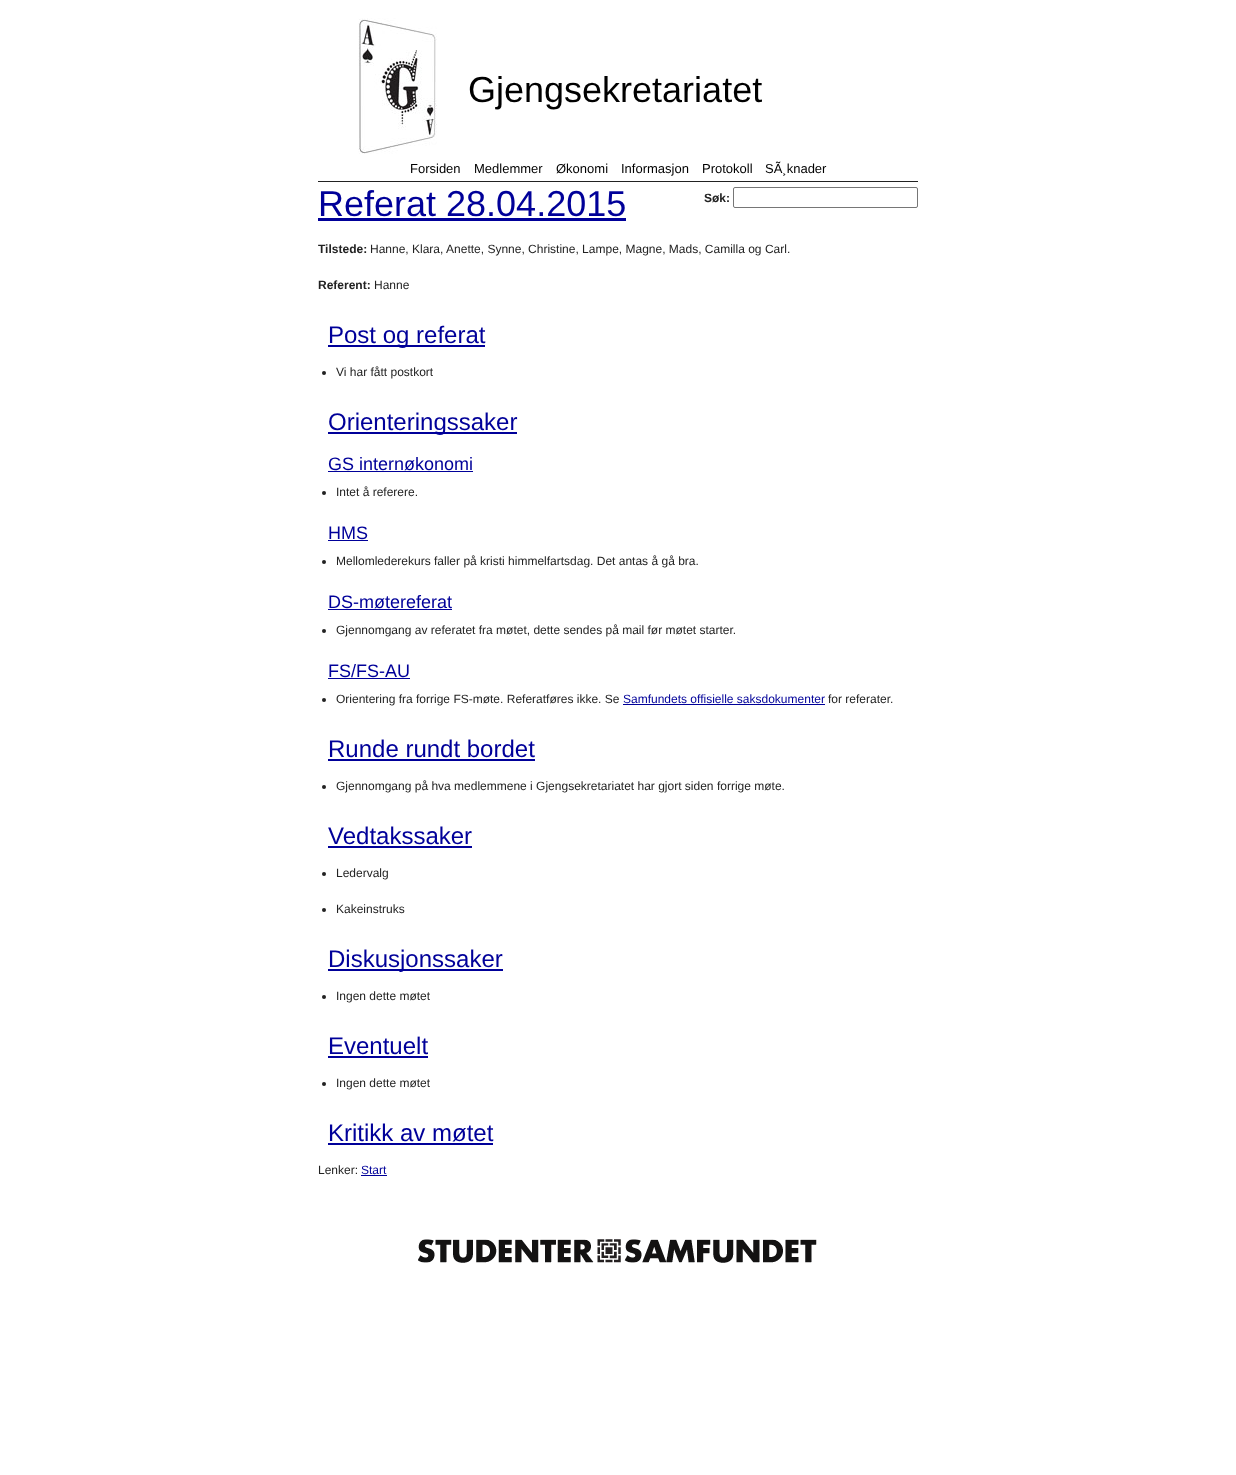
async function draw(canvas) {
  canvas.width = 1236;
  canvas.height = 1475;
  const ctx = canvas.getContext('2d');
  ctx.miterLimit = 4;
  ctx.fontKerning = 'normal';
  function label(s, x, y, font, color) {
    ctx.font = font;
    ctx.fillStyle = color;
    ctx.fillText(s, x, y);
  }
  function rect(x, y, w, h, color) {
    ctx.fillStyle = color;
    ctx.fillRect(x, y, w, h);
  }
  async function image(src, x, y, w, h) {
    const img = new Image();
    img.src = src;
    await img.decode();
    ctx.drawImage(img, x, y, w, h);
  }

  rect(0, 0, 1236, 1475, '#fff');
  await image('assets/img1.png', 358, 18, 79, 136);
  label('Gjengsekretariatet', 468, 102, '36px Liberation Sans', '#000');
  rect(318, 181, 600, 1, '#222');
  label('Forsiden', 410, 173, '13px Liberation Sans', '#000');
  label('Medlemmer', 474, 173, '13px Liberation Sans', '#000');
  label('Økonomi', 556, 173, '13px Liberation Sans', '#000');
  label('Informasjon', 621, 173, '13px Liberation Sans', '#000');
  label('Protokoll', 702, 173, '13px Liberation Sans', '#000');
  label('SÃ¸knader', 765, 173, '13px Liberation Sans', '#000');
  label('Referat 28.04.2015', 318, 216, '36px Liberation Sans', '#009');
  rect(318, 218, 308, 3, '#009');
  label('Søk:', 704, 202, 'bold 12px Liberation Sans', '#222');
  ctx.beginPath();
  ctx.roundRect(733.5, 187.5, 184, 20, 1.5);
  ctx.strokeStyle = '#767676';
  ctx.stroke();
  label('Tilstede:', 318, 253, 'bold 12px Liberation Sans', '#222');
  label('Hanne, Klara, Anette, Synne, Christine, Lampe, Magne, Mads, Camilla og Carl.', 370, 253, '12px Liberation Sans', '#222');
  label('Referent:', 318, 289, 'bold 12px Liberation Sans', '#222');
  label('Hanne', 374, 289, '12px Liberation Sans', '#222');
  rect(328, 345, 157, 2, '#009');
  label('Post og referat', 328, 343, '24px Liberation Sans', '#009');
  ctx.fillStyle = '#222';
  ctx.beginPath();
  ctx.arc(324, 373, 2, 0, 2 * Math.PI);
  ctx.fill();
  label('Vi har fått postkort', 336, 376, '12px Liberation Sans', '#222');
  rect(328, 432, 189, 2, '#009');
  label('Orienteringssaker', 328, 430, '24px Liberation Sans', '#009');
  label('GS internøkonomi', 328, 470, '18px Liberation Sans', '#009');
  rect(328, 471, 145, 1, '#009');
  ctx.fillStyle = '#222';
  ctx.beginPath();
  ctx.arc(324, 493, 2, 0, 2 * Math.PI);
  ctx.fill();
  label('Intet å referere.', 336, 496, '12px Liberation Sans', '#222');
  label('HMS', 328, 539, '18px Liberation Sans', '#009');
  rect(328, 540, 40, 1, '#009');
  ctx.fillStyle = '#222';
  ctx.beginPath();
  ctx.arc(324, 562, 2, 0, 2 * Math.PI);
  ctx.fill();
  label('Mellomlederekurs faller på kristi himmelfartsdag. Det antas å gå bra.', 336, 565, '12px Liberation Sans', '#222');
  label('DS-møtereferat', 328, 608, '18px Liberation Sans', '#009');
  rect(328, 609, 124, 1, '#009');
  ctx.fillStyle = '#222';
  ctx.beginPath();
  ctx.arc(324, 631, 2, 0, 2 * Math.PI);
  ctx.fill();
  label('Gjennomgang av referatet fra møtet, dette sendes på mail før møtet starter.', 336, 634, '12px Liberation Sans', '#222');
  label('FS/FS-AU', 328, 677, '18px Liberation Sans', '#009');
  rect(328, 678, 82, 1, '#009');
  ctx.fillStyle = '#222';
  ctx.beginPath();
  ctx.arc(324, 700, 2, 0, 2 * Math.PI);
  ctx.fill();
  label('Orientering fra forrige FS-møte. Referatføres ikke. Se', 336, 703, '12px Liberation Sans', '#222');
  label('Samfundets offisielle saksdokumenter', 623, 703, '12px Liberation Sans', '#009');
  rect(623, 704, 202, 1, '#009');
  label('for referater.', 828, 703, '12px Liberation Sans', '#222');
  label('Runde rundt bordet', 328, 757, '24px Liberation Sans', '#009');
  rect(328, 759, 207, 2, '#009');
  ctx.fillStyle = '#222';
  ctx.beginPath();
  ctx.arc(324, 787, 2, 0, 2 * Math.PI);
  ctx.fill();
  label('Gjennomgang på hva medlemmene i Gjengsekretariatet har gjort siden forrige møte.', 336, 790, '12px Liberation Sans', '#222');
  label('Vedtakssaker', 328, 844, '24px Liberation Sans', '#009');
  rect(328, 846, 144, 2, '#009');
  ctx.fillStyle = '#222';
  ctx.beginPath();
  ctx.arc(324, 874, 2, 0, 2 * Math.PI);
  ctx.fill();
  label('Ledervalg', 336, 877, '12px Liberation Sans', '#222');
  ctx.beginPath();
  ctx.arc(324, 910, 2, 0, 2 * Math.PI);
  ctx.fill();
  label('Kakeinstruks', 336, 913, '12px Liberation Sans', '#222');
  rect(328, 969, 175, 2, '#009');
  label('Diskusjonssaker', 328, 967, '24px Liberation Sans', '#009');
  ctx.fillStyle = '#222';
  ctx.beginPath();
  ctx.arc(324, 997, 2, 0, 2 * Math.PI);
  ctx.fill();
  label('Ingen dette møtet', 336, 1000, '12px Liberation Sans', '#222');
  label('Eventuelt', 328, 1054, '24px Liberation Sans', '#009');
  rect(328, 1056, 100, 2, '#009');
  ctx.fillStyle = '#222';
  ctx.beginPath();
  ctx.arc(324, 1084, 2, 0, 2 * Math.PI);
  ctx.fill();
  label('Ingen dette møtet', 336, 1087, '12px Liberation Sans', '#222');
  label('Kritikk av møtet', 328, 1141, '24px Liberation Sans', '#009');
  rect(328, 1143, 165, 2, '#009');
  label('Lenker:', 318, 1174, '12px Liberation Sans', '#222');
  label('Start', 361, 1174, '12px Liberation Sans', '#009');
  rect(361, 1175, 26, 1, '#009');
  await image('assets/img2.png', 418, 1239, 399, 24);
}

draw(document.querySelector('canvas'));
